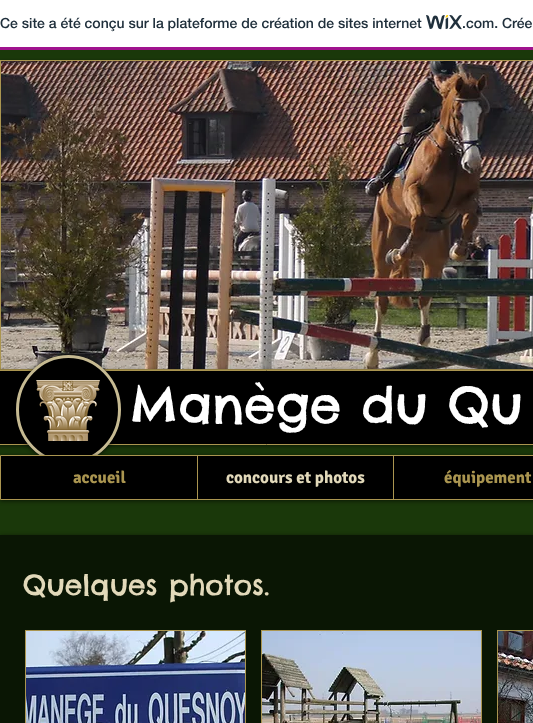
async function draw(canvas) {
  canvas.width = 533;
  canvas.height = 723;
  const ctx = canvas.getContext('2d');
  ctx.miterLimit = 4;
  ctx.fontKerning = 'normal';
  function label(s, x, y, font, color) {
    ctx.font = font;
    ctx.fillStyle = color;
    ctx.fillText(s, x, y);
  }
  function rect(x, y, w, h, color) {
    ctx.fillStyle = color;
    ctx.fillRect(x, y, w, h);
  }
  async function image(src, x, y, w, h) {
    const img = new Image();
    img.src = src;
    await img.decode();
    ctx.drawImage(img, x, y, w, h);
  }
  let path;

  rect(0, 0, 533, 723, '#fff');
  rect(0, 47, 533, 3, '#a0138e');
  label('Ce site a été conçu sur la plateforme de création de sites internet', 0, 28, '500 14px "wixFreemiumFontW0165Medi"', '#20303c');
  await image('assets/img1.png', 426, 15, 36, 15);
  label('.com. Crée', 462, 28, '500 14px "wixFreemiumFontW0165Medi"', '#20303c');
  rect(0, 50, 533, 485, '#1a380a');
  ctx.fillStyle = '#00000080';
  ctx.filter = 'blur(1.5px)';
  ctx.beginPath();
  ctx.rect(0, 61, 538, 310);
  ctx.fill();
  ctx.filter = 'none';
  rect(0, 60, 533, 310, '#aa9550');
  await image('assets/img2.png', 1, 61, 532, 308);
  ctx.fillStyle = '#00000099';
  ctx.filter = 'blur(2px)';
  ctx.beginPath();
  ctx.rect(-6, 371, 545, 75);
  ctx.fill();
  ctx.filter = 'none';
  ctx.fillStyle = '#000';
  ctx.beginPath();
  ctx.rect(-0.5, 370.5, 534, 74);
  ctx.fill();
  ctx.strokeStyle = '#aa9550';
  ctx.stroke();
  ctx.fillStyle = '#00000099';
  ctx.filter = 'blur(2px)';
  ctx.beginPath();
  ctx.roundRect(16, 356, 105, 109, 52.5);
  ctx.fill();
  ctx.filter = 'none';
  ctx.fillStyle = '#000';
  ctx.beginPath();
  ctx.ellipse(68.5, 409.5, 52.5, 54.5, 0, 0, 2 * Math.PI);
  ctx.fill();
  path = new Path2D('M68.5 356.5C96.5 356.5 119.5 380 119.5 409.5C119.5 439 96.5 462.5 68.5 462.5C40.5 462.5 17.5 439 17.5 409.5C17.5 380 40.5 356.5 68.5 356.5Z');
  ctx.strokeStyle = '#c6ba92';
  ctx.lineWidth = 3;
  ctx.stroke(path);
  await image('assets/img3.png', 36, 380, 64, 61);
  label('Manège du Qu', 130, 423, '50px Chelsea Market', '#fff');
  ctx.fillStyle = '#00000099';
  ctx.filter = 'blur(2px)';
  ctx.beginPath();
  ctx.rect(0, 456, 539, 45);
  ctx.fill();
  ctx.filter = 'none';
  ctx.fillStyle = '#000';
  ctx.beginPath();
  ctx.rect(0.5, 455.5, 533, 44);
  ctx.fill();
  ctx.strokeStyle = '#aa9550';
  ctx.lineWidth = 1;
  ctx.stroke();
  label('accueil', 73, 483, 'bold 17px Signika', '#aa9550');
  rect(197, 456, 1, 43, '#aa9550');
  label('concours et photos', 226, 483, 'bold 17px Signika', '#e2d9ba');
  rect(393, 456, 1, 43, '#aa9550');
  label('équipement', 444, 483, 'bold 17px Signika', '#aa9550');
  ctx.fillStyle = '#00000099';
  ctx.filter = 'blur(2px)';
  ctx.beginPath();
  ctx.rect(0, 536, 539, 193);
  ctx.fill();
  ctx.filter = 'none';
  rect(0, 535, 533, 188, '#0a1604');
  label('Quelques photos.', 23, 595, '28px Chelsea Market', '#e2d9ba');
  rect(25, 630, 221, 93, '#aa9550');
  await image('assets/img4.png', 26, 631, 219, 92);
  rect(261, 630, 221, 93, '#aa9550');
  await image('assets/img5.png', 262, 631, 219, 92);
  rect(497, 630, 36, 93, '#aa9550');
  await image('assets/img6.png', 498, 631, 35, 92);
}

draw(document.querySelector('canvas'));
